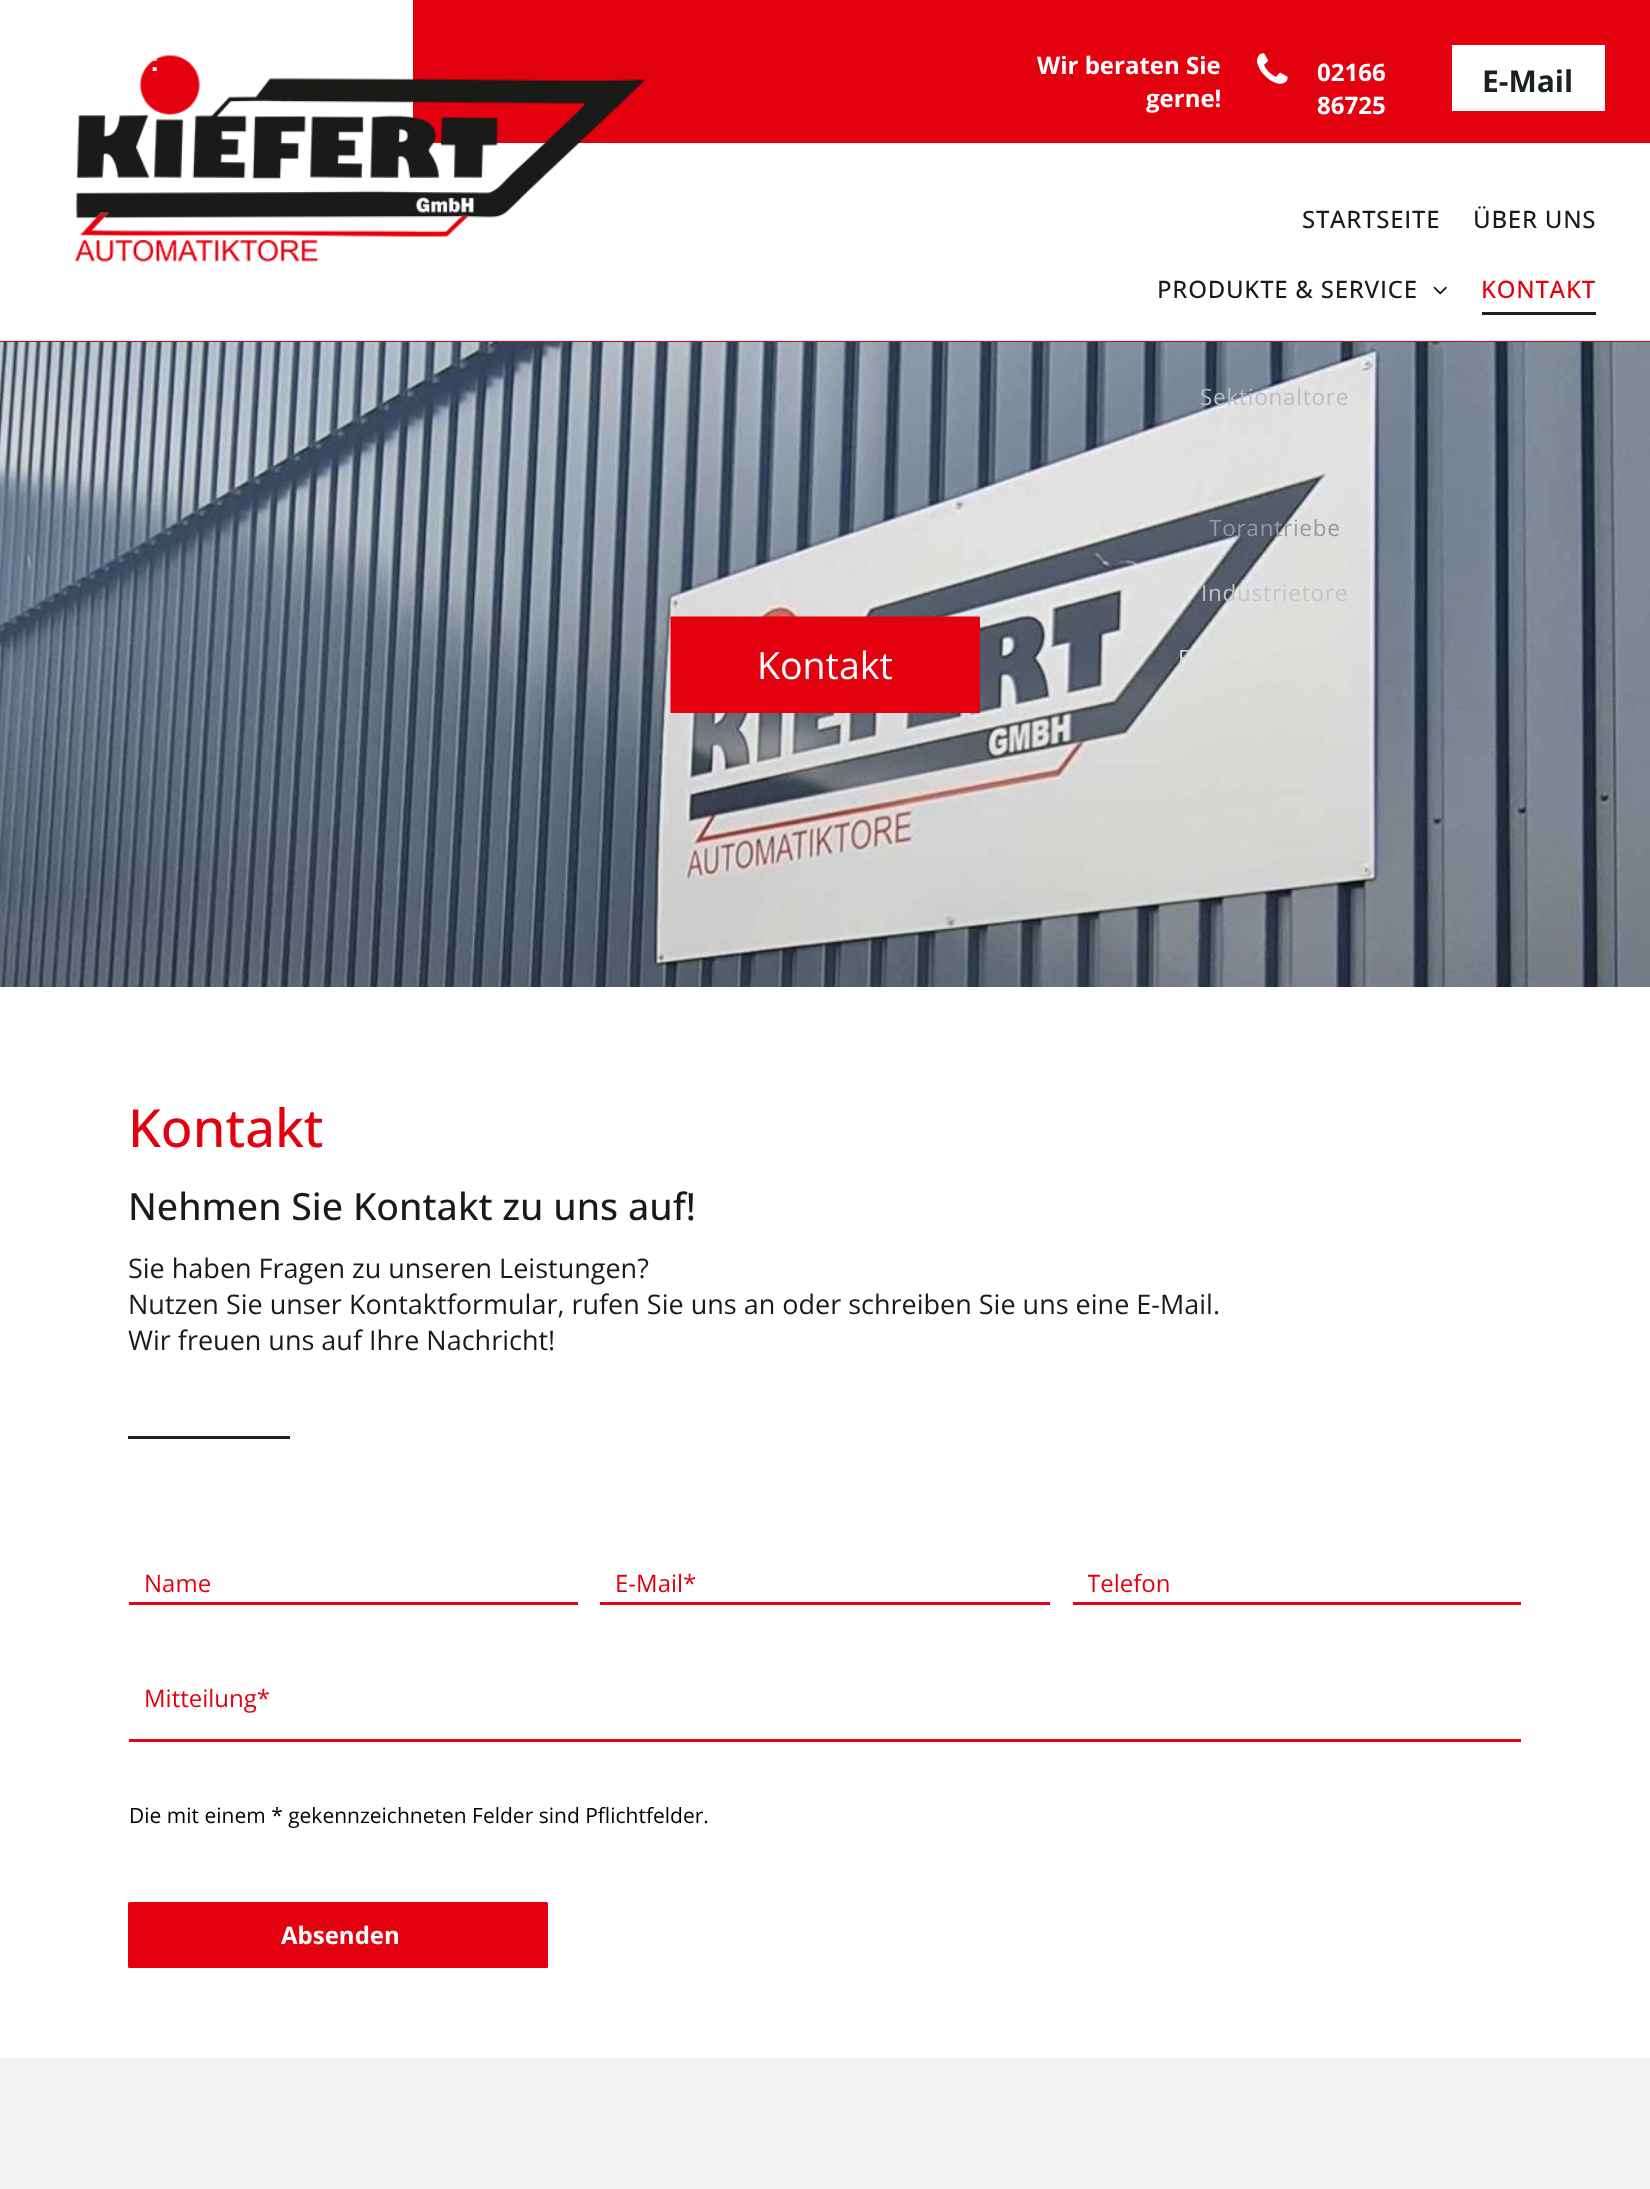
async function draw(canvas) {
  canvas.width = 1650;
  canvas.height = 2189;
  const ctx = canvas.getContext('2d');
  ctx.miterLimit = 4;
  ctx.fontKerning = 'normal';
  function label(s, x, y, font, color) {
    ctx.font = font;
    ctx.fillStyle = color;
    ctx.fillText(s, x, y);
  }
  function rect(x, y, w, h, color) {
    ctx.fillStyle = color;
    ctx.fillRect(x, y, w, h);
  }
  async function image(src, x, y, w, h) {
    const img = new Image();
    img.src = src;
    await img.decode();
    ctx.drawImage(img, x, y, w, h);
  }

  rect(0, 0, 1650, 2189, '#fff');
  rect(413, 0, 1237, 143, '#e3000f');
  label('Wir beraten Sie', 1037, 74, 'bold 24px Open Sans', '#fff');
  label('gerne!', 1146, 107, 'bold 24px Open Sans', '#fff');
  await image('assets/img1.png', 1257, 53, 31, 31);
  label('02166', 1317, 81, 'bold 24px Open Sans', '#fff');
  label('86725', 1317, 114, 'bold 24px Open Sans', '#fff');
  rect(1452, 45, 153, 66, '#fff');
  label('E-Mail', 1482, 92, 'bold 30px Open Sans', '#192123');
  rect(0, 341, 1650, 1, '#e3000f');
  await image('assets/img2.png', 75, 55, 570, 207);
  ctx.letterSpacing = '0.75px';
  label('STARTSEITE', 1302, 228, '500 24px Open Sans', '#1a1a18');
  label('ÜBER UNS', 1473, 228, '500 24px Open Sans', '#1a1a18');
  label('PRODUKTE & SERVICE', 1157, 298, '500 24px Open Sans', '#1a1a18');
  await image('assets/img3.png', 1433, 286, 14, 9);
  await image('assets/img4.png', 0, 342, 1650, 645);
  label('Sektionaltore', 1200, 405, '22.5px Open Sans', '#b9bdc3');
  label('Torantriebe', 1209, 536, '22.5px Open Sans', '#9599a1');
  label('Industrietore', 1201, 601, '22.5px Open Sans', '#c3c4c6');
  label('F', 1178, 666, '22.5px Open Sans', '#d7d8d5');
  label('KONTAKT', 1481, 298, '500 24px Open Sans', '#e3000f');
  rect(1482, 312, 114, 3, '#192123');
  rect(671, 617, 309, 96, '#e3000f');
  ctx.letterSpacing = '0px';
  label('Kontakt', 757, 679, '37.5px Open Sans', '#fff');
  label('Kontakt', 128, 1147, '500 52.5px Open Sans', '#e3000f');
  label('Nehmen Sie Kontakt zu uns auf!', 128, 1220, '500 37.5px Open Sans', '#1a1a18');
  label('Sie haben Fragen zu unseren Leistungen?', 128, 1278, '27px Open Sans', '#1a1a18');
  label('Nutzen Sie unser Kontaktformular, rufen Sie uns an oder schreiben Sie uns eine E-Mail.', 128, 1314, '27px Open Sans', '#1a1a18');
  label('Wir freuen uns auf Ihre Nachricht!', 128, 1350, '27px Open Sans', '#1a1a18');
  rect(128, 1436, 162, 3, '#192123');
  rect(129, 1602, 449, 3, '#e3000f');
  label('Name', 144, 1592, '24px Open Sans', '#e3000f');
  rect(600, 1602, 450, 3, '#e3000f');
  label('E-Mail*', 615, 1592, '24px Open Sans', '#e3000f');
  rect(1073, 1602, 448, 3, '#e3000f');
  ctx.save();
  ctx.beginPath();
  ctx.rect(1088, 1566, 418, 33);
  ctx.clip();
  label('Telefon', 1087, 1592, '24px Open Sans', '#e3000f');
  ctx.restore();
  rect(129, 1739, 1392, 3, '#e3000f');
  label('Mitteilung*', 144, 1707, '24px Open Sans', '#e3000f');
  label('Die mit einem * gekennzeichneten Felder sind Pflichtfelder.', 129, 1823, '21px Open Sans', '#000');
  ctx.fillStyle = '#e3000f';
  ctx.beginPath();
  ctx.roundRect(129, 1903, 418, 64, 0.5);
  ctx.fill();
  ctx.strokeStyle = '#e3000f';
  ctx.lineWidth = 2;
  ctx.stroke();
  label('Absenden', 281, 1944, 'bold 24px Open Sans', '#fff');
  rect(0, 2058, 1650, 131, '#f2f2f2');
  label(':', 150, 71, 'bold 28px Liberation Sans', '#fef8f8');
}

draw(document.querySelector('canvas'));
